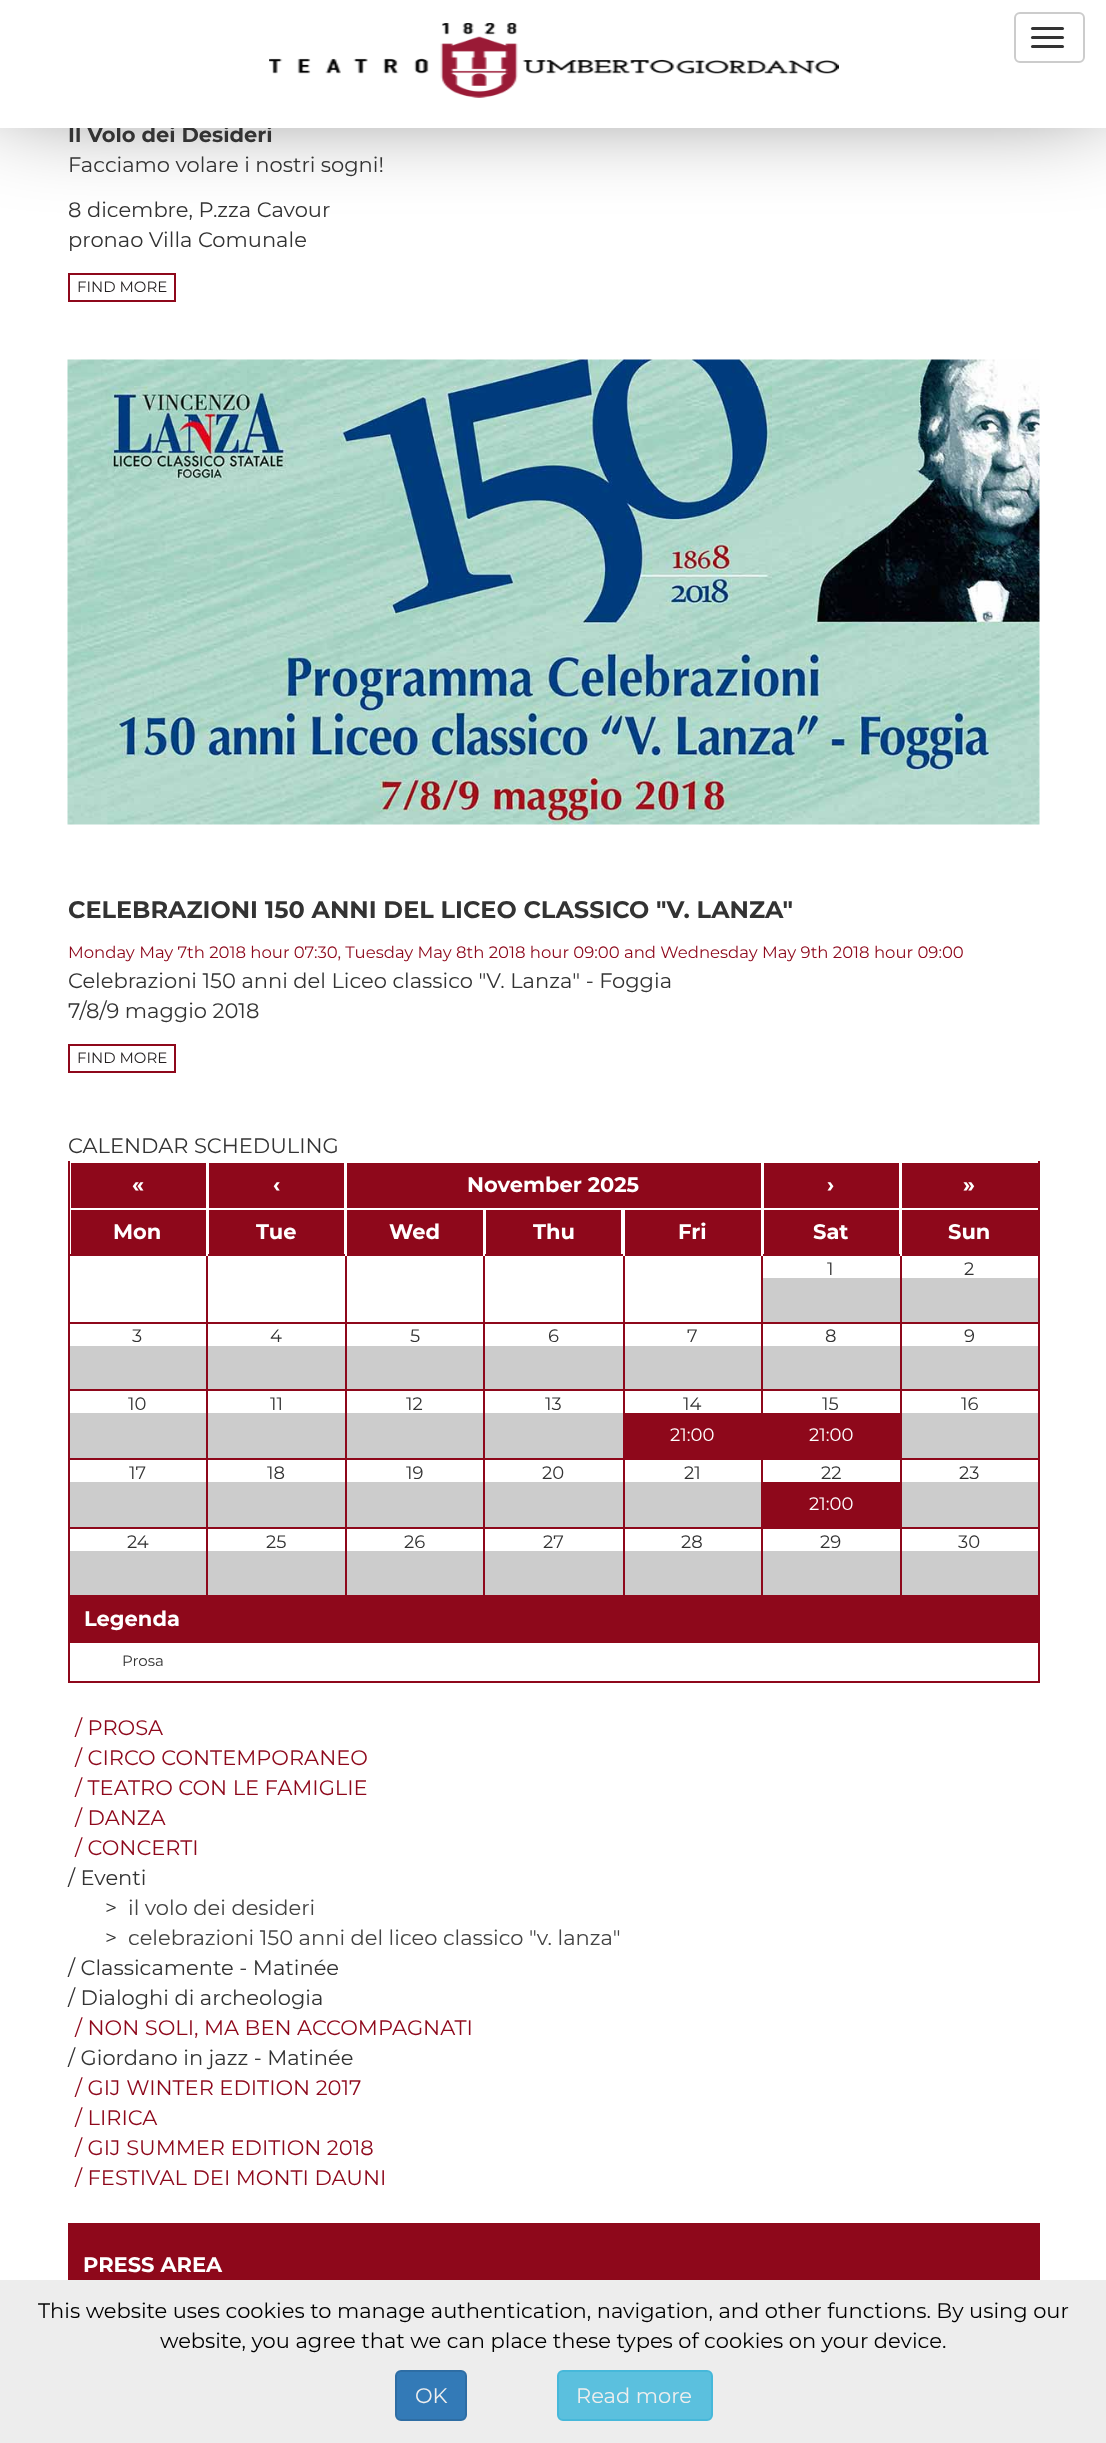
async function draw(canvas) {
  canvas.width = 1106;
  canvas.height = 2443;
  const ctx = canvas.getContext('2d');
  ctx.miterLimit = 4;
  ctx.fontKerning = 'normal';
  function label(s, x, y, font, color) {
    ctx.font = font;
    ctx.fillStyle = color;
    ctx.fillText(s, x, y);
  }
  function rect(x, y, w, h, color) {
    ctx.fillStyle = color;
    ctx.fillRect(x, y, w, h);
  }
  function roundedRect(x, y, w, h, r, color) {
    ctx.fillStyle = color;
    ctx.beginPath();
    ctx.roundRect(x, y, w, h, r);
    ctx.fill();
  }
  async function image(src, x, y, w, h) {
    const img = new Image();
    img.src = src;
    await img.decode();
    ctx.drawImage(img, x, y, w, h);
  }

  rect(0, 0, 1106, 2443, '#fff');
  ctx.fillStyle = '#000000bf';
  ctx.filter = 'blur(52.5px)';
  ctx.beginPath();
  ctx.rect(0, 0, 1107, 90);
  ctx.fill();
  ctx.filter = 'none';
  label('Il Volo dei Desideri', 68, 142, 'bold 21px Montserrat', '#333');
  rect(0, 0, 1106, 128, '#fff');
  await image('assets/img1.png', 269, 23, 570, 75);
  ctx.beginPath();
  ctx.roundRect(1015, 13, 69, 49, 5);
  ctx.strokeStyle = '#ccc';
  ctx.lineWidth = 2;
  ctx.stroke();
  roundedRect(1031, 27, 33, 3, 1.5, '#333');
  roundedRect(1031, 36, 33, 3, 1.5, '#333');
  roundedRect(1031, 45, 33, 3, 1.5, '#333');
  label('Facciamo volare i nostri sogni!', 68, 172, '21px Montserrat', '#333');
  label('8 dicembre, P.zza Cavour', 68, 217, '21px Montserrat', '#333');
  label('pronao Villa Comunale', 68, 247, '21px Montserrat', '#333');
  ctx.strokeStyle = '#8e081b';
  ctx.strokeRect(69, 274, 106, 27);
  label('FIND MORE', 77, 292, '15px Montserrat', '#231f20');
  await image('assets/img2.png', 67, 359, 973, 466);
  label('CELEBRAZIONI 150 ANNI DEL LICEO CLASSICO "V. LANZA"', 68, 918, 'bold 24px Montserrat', '#333');
  label('Monday May 7th 2018 hour 07:30, Tuesday May 8th 2018 hour 09:00 and Wednesday May 9th 2018 hour 09:00', 68, 958, '16.5px Montserrat', '#8e081b');
  label('Celebrazioni 150 anni del Liceo classico "V. Lanza" - Foggia', 68, 988, '21px Montserrat', '#333');
  label('7/8/9 maggio 2018', 68, 1018, '21px Montserrat', '#333');
  ctx.strokeRect(69, 1045, 106, 27);
  label('FIND MORE', 77, 1063, '15px Montserrat', '#231f20');
  label('CALENDAR SCHEDULING', 68, 1153, '21px Montserrat', '#333');
  rect(71, 1163, 135, 45, '#8e081b');
  label('«', 132, 1192, 'bold 21px Montserrat', '#fff');
  rect(209, 1163, 135, 45, '#8e081b');
  label('‹', 273, 1192, 'bold 21px Montserrat', '#fff');
  rect(347, 1163, 414, 45, '#8e081b');
  label('November 2025', 467, 1192, 'bold 21px Montserrat', '#fff');
  rect(764, 1163, 135, 45, '#8e081b');
  label('›', 827, 1192, 'bold 21px Montserrat', '#fff');
  rect(902, 1163, 136, 45, '#8e081b');
  label('»', 963, 1192, 'bold 21px Montserrat', '#fff');
  rect(71, 1210, 135, 44, '#8e081b');
  label('Mon', 113, 1239, 'bold 21px Montserrat', '#fff');
  rect(209, 1210, 135, 44, '#8e081b');
  rect(900, 1254, 140, 2, '#8e081b');
  rect(900, 1322, 140, 2, '#8e081b');
  rect(900, 1389, 140, 2, '#8e081b');
  rect(900, 1458, 140, 2, '#8e081b');
  rect(900, 1527, 140, 2, '#8e081b');
  rect(1038, 1527, 2, 69, '#8e081b');
  rect(900, 1595, 140, 1, '#8e081b');
  rect(900, 1527, 2, 69, '#8e081b');
  rect(761, 1527, 141, 2, '#8e081b');
  rect(900, 1458, 2, 71, '#8e081b');
  rect(761, 1458, 141, 2, '#8e081b');
  rect(900, 1389, 2, 71, '#8e081b');
  rect(761, 1389, 141, 2, '#8e081b');
  rect(900, 1322, 2, 69, '#8e081b');
  rect(761, 1322, 141, 2, '#8e081b');
  rect(900, 1254, 2, 69, '#8e081b');
  rect(761, 1254, 141, 2, '#8e081b');
  rect(761, 1595, 141, 1, '#8e081b');
  rect(761, 1527, 2, 69, '#8e081b');
  rect(623, 1527, 139, 2, '#8e081b');
  rect(761, 1458, 2, 71, '#8e081b');
  rect(623, 1458, 139, 2, '#8e081b');
  rect(761, 1389, 2, 71, '#8e081b');
  rect(623, 1389, 139, 2, '#8e081b');
  rect(761, 1322, 2, 69, '#8e081b');
  rect(623, 1322, 139, 2, '#8e081b');
  rect(761, 1254, 2, 69, '#8e081b');
  rect(623, 1254, 139, 2, '#8e081b');
  rect(623, 1595, 139, 1, '#8e081b');
  rect(623, 1527, 2, 69, '#8e081b');
  rect(483, 1527, 141, 2, '#8e081b');
  rect(623, 1458, 2, 71, '#8e081b');
  rect(483, 1458, 141, 2, '#8e081b');
  rect(623, 1389, 2, 71, '#8e081b');
  rect(483, 1389, 141, 2, '#8e081b');
  rect(623, 1322, 2, 69, '#8e081b');
  rect(483, 1322, 141, 2, '#8e081b');
  rect(623, 1254, 2, 69, '#8e081b');
  rect(483, 1254, 141, 2, '#8e081b');
  rect(483, 1595, 141, 1, '#8e081b');
  rect(483, 1527, 2, 69, '#8e081b');
  rect(345, 1527, 140, 2, '#8e081b');
  rect(483, 1458, 2, 71, '#8e081b');
  rect(345, 1458, 140, 2, '#8e081b');
  rect(483, 1389, 2, 71, '#8e081b');
  rect(345, 1389, 140, 2, '#8e081b');
  rect(483, 1322, 2, 69, '#8e081b');
  rect(345, 1322, 140, 2, '#8e081b');
  rect(483, 1254, 2, 69, '#8e081b');
  rect(345, 1254, 140, 2, '#8e081b');
  rect(345, 1595, 140, 1, '#8e081b');
  rect(345, 1527, 2, 69, '#8e081b');
  rect(206, 1527, 141, 2, '#8e081b');
  rect(345, 1458, 2, 71, '#8e081b');
  rect(206, 1458, 141, 2, '#8e081b');
  rect(345, 1389, 2, 71, '#8e081b');
  rect(206, 1389, 141, 2, '#8e081b');
  rect(345, 1322, 2, 69, '#8e081b');
  rect(206, 1322, 141, 2, '#8e081b');
  rect(345, 1254, 2, 69, '#8e081b');
  rect(206, 1254, 141, 2, '#8e081b');
  rect(206, 1595, 141, 1, '#8e081b');
  rect(206, 1527, 2, 69, '#8e081b');
  rect(68, 1527, 139, 2, '#8e081b');
  rect(206, 1458, 2, 71, '#8e081b');
  rect(68, 1458, 139, 2, '#8e081b');
  rect(206, 1389, 2, 71, '#8e081b');
  rect(68, 1389, 139, 2, '#8e081b');
  rect(206, 1322, 2, 69, '#8e081b');
  rect(68, 1322, 139, 2, '#8e081b');
  rect(206, 1254, 2, 69, '#8e081b');
  rect(68, 1254, 139, 2, '#8e081b');
  rect(206, 1254, 2, 2, '#fff');
  label('Tue', 256, 1239, 'bold 21px Montserrat', '#fff');
  rect(347, 1210, 136, 44, '#8e081b');
  rect(345, 1254, 2, 2, '#fff');
  label('Wed', 389, 1239, 'bold 21px Montserrat', '#fff');
  rect(486, 1210, 135, 44, '#8e081b');
  rect(483, 1254, 2, 2, '#fff');
  label('Thu', 533, 1239, 'bold 21px Montserrat', '#fff');
  rect(625, 1210, 136, 44, '#8e081b');
  rect(623, 1254, 2, 2, '#fff');
  label('Fri', 678, 1239, 'bold 21px Montserrat', '#fff');
  rect(764, 1210, 135, 44, '#8e081b');
  rect(761, 1254, 2, 2, '#fff');
  label('Sat', 813, 1239, 'bold 21px Montserrat', '#fff');
  rect(902, 1210, 136, 44, '#8e081b');
  rect(900, 1254, 2, 2, '#fff');
  label('Sun', 948, 1239, 'bold 21px Montserrat', '#fff');
  rect(68, 1595, 139, 1, '#8e081b');
  rect(68, 1527, 2, 69, '#8e081b');
  rect(68, 1458, 2, 71, '#8e081b');
  rect(68, 1389, 2, 71, '#8e081b');
  rect(68, 1322, 2, 69, '#8e081b');
  rect(68, 1161, 2, 162, '#8e081b');
  rect(763, 1278, 137, 44, '#ccc');
  label('1', 827, 1275, '18px Montserrat', '#333');
  rect(902, 1278, 136, 44, '#ccc');
  rect(1038, 1458, 2, 71, '#8e081b');
  rect(1038, 1389, 2, 71, '#8e081b');
  rect(1038, 1322, 2, 69, '#8e081b');
  rect(1038, 1161, 2, 162, '#8e081b');
  label('2', 964, 1275, '18px Montserrat', '#333');
  rect(70, 1346, 136, 43, '#ccc');
  label('3', 132, 1342, '18px Montserrat', '#333');
  rect(208, 1346, 137, 43, '#ccc');
  label('4', 270, 1342, '18px Montserrat', '#333');
  rect(347, 1346, 136, 43, '#ccc');
  label('5', 410, 1342, '18px Montserrat', '#333');
  rect(485, 1346, 138, 43, '#ccc');
  label('6', 548, 1342, '18px Montserrat', '#333');
  rect(625, 1346, 136, 43, '#ccc');
  label('7', 687, 1342, '18px Montserrat', '#333');
  rect(763, 1346, 137, 43, '#ccc');
  label('8', 825, 1342, '18px Montserrat', '#333');
  rect(902, 1346, 136, 43, '#ccc');
  label('9', 964, 1342, '18px Montserrat', '#333');
  rect(70, 1413, 136, 45, '#ccc');
  label('10', 128, 1410, '18px Montserrat', '#333');
  rect(208, 1413, 137, 45, '#ccc');
  label('11', 270, 1410, '18px Montserrat', '#333');
  rect(347, 1413, 136, 45, '#ccc');
  label('12', 406, 1410, '18px Montserrat', '#333');
  rect(485, 1413, 138, 45, '#ccc');
  label('13', 545, 1410, '18px Montserrat', '#333');
  label('14', 683, 1410, '18px Montserrat', '#333');
  rect(625, 1413, 136, 45, '#8e081b');
  label('21:00', 670, 1441, '18px Montserrat', '#fff');
  label('15', 822, 1410, '18px Montserrat', '#333');
  rect(763, 1413, 137, 45, '#8e081b');
  label('21:00', 809, 1441, '18px Montserrat', '#fff');
  rect(902, 1413, 136, 45, '#ccc');
  label('16', 961, 1410, '18px Montserrat', '#333');
  rect(70, 1482, 136, 45, '#ccc');
  label('17', 129, 1479, '18px Montserrat', '#333');
  rect(208, 1482, 137, 45, '#ccc');
  label('18', 267, 1479, '18px Montserrat', '#333');
  rect(347, 1482, 136, 45, '#ccc');
  label('19', 406, 1479, '18px Montserrat', '#333');
  rect(485, 1482, 138, 45, '#ccc');
  label('20', 542, 1479, '18px Montserrat', '#333');
  rect(625, 1482, 136, 45, '#ccc');
  label('21', 684, 1479, '18px Montserrat', '#333');
  label('22', 821, 1479, '18px Montserrat', '#333');
  rect(763, 1482, 137, 45, '#8e081b');
  label('21:00', 809, 1510, '18px Montserrat', '#fff');
  rect(902, 1482, 136, 45, '#ccc');
  label('23', 959, 1479, '18px Montserrat', '#333');
  rect(70, 1551, 136, 44, '#ccc');
  label('24', 127, 1548, '18px Montserrat', '#333');
  rect(208, 1551, 137, 44, '#ccc');
  label('25', 266, 1548, '18px Montserrat', '#333');
  rect(347, 1551, 136, 44, '#ccc');
  label('26', 404, 1548, '18px Montserrat', '#333');
  rect(485, 1551, 138, 44, '#ccc');
  label('27', 543, 1548, '18px Montserrat', '#333');
  rect(625, 1551, 136, 44, '#ccc');
  label('28', 681, 1548, '18px Montserrat', '#333');
  rect(763, 1551, 137, 44, '#ccc');
  label('29', 820, 1548, '18px Montserrat', '#333');
  rect(902, 1551, 136, 44, '#ccc');
  label('30', 958, 1548, '18px Montserrat', '#333');
  ctx.strokeRect(69, 1597, 970, 85);
  rect(70, 1598, 968, 42, '#8e081b');
  label('Legenda', 84, 1626, 'bold 21px Montserrat', '#fff');
  rect(69, 1640, 969, 3, '#8e081b');
  label('Prosa', 122, 1666, '15px Montserrat', '#333');
  label('/ PROSA', 75, 1735, '21px Montserrat', '#8e081b');
  label('/ CIRCO CONTEMPORANEO', 75, 1765, '21px Montserrat', '#8e081b');
  label('/ TEATRO CON LE FAMIGLIE', 75, 1795, '21px Montserrat', '#8e081b');
  label('/ DANZA', 75, 1825, '21px Montserrat', '#8e081b');
  label('/ CONCERTI', 75, 1855, '21px Montserrat', '#8e081b');
  label('/ Eventi', 68, 1885, '21px Montserrat', '#333');
  label('>', 105, 1915, '21px Montserrat', '#333');
  label('il volo dei desideri', 128, 1915, '21px Montserrat', '#444');
  label('>', 105, 1945, '21px Montserrat', '#333');
  label('celebrazioni 150 anni del liceo classico "v. lanza"', 128, 1945, '21px Montserrat', '#444');
  label('/ Classicamente - Matinée', 68, 1975, '21px Montserrat', '#333');
  label('/ Dialoghi di archeologia', 68, 2005, '21px Montserrat', '#333');
  label('/ NON SOLI, MA BEN ACCOMPAGNATI', 75, 2035, '21px Montserrat', '#8e081b');
  label('/ Giordano in jazz - Matinée', 68, 2065, '21px Montserrat', '#333');
  label('/ GIJ WINTER EDITION 2017', 75, 2095, '21px Montserrat', '#8e081b');
  label('/ LIRICA', 75, 2125, '21px Montserrat', '#8e081b');
  label('/ GIJ SUMMER EDITION 2018', 75, 2155, '21px Montserrat', '#8e081b');
  label('/ FESTIVAL DEI MONTI DAUNI', 75, 2185, '21px Montserrat', '#8e081b');
  rect(68, 2223, 972, 57, '#8e081b');
  label('PRESS AREA', 83, 2272, 'bold 21px Montserrat', '#fff');
  rect(0, 2280, 1106, 163, '#ededed');
  label('This website uses cookies to manage authentication, navigation, and other functions. By using our', 38, 2318, '21px Montserrat', '#000');
  label('website, you agree that we can place these types of cookies on your device.', 160, 2348, '21px Montserrat', '#000');
  ctx.fillStyle = '#337ab7';
  ctx.beginPath();
  ctx.roundRect(396, 2371, 70, 49, 5);
  ctx.fill();
  ctx.strokeStyle = '#2e6da4';
  ctx.stroke();
  label('OK', 415, 2403, '21px Montserrat', '#eee');
  ctx.fillStyle = '#5bc0de';
  ctx.beginPath();
  ctx.roundRect(558, 2371, 154, 49, 5);
  ctx.fill();
  ctx.strokeStyle = '#46b8da';
  ctx.stroke();
  label('Read more', 576, 2403, '21px Montserrat', '#eee');
}

draw(document.querySelector('canvas'));
